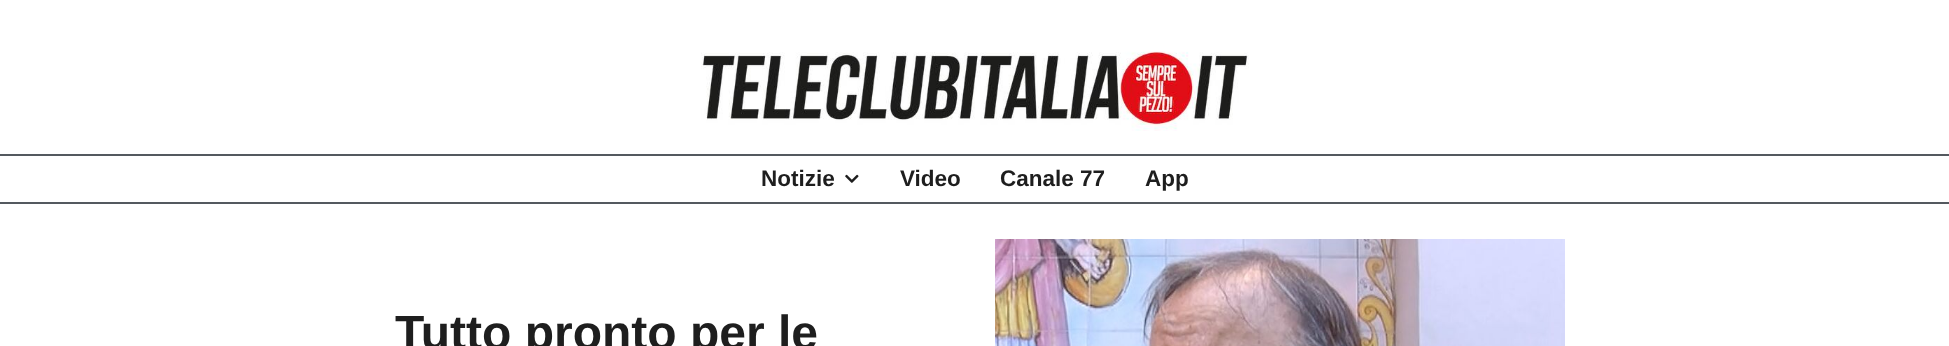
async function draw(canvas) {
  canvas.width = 1949;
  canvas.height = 346;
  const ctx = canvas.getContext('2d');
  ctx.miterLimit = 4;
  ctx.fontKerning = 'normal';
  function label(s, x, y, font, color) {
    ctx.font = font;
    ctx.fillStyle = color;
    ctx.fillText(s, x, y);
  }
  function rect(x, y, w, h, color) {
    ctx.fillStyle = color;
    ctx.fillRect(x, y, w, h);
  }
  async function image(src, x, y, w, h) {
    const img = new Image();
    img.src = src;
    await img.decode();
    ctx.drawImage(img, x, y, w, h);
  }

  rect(0, 0, 1949, 346, '#fff');
  await image('assets/img1.png', 701, 51, 548, 80);
  rect(0, 154, 1949, 2, '#54595f');
  rect(0, 202, 1949, 2, '#54595f');
  label('Notizie', 761, 186, 'bold 22.5px Liberation Sans', '#1e1e1e');
  await image('assets/img2.png', 845, 174, 14, 9);
  label('Video', 900, 186, 'bold 22.5px Liberation Sans', '#1e1e1e');
  label('Canale 77', 1000, 186, 'bold 22.5px Liberation Sans', '#1e1e1e');
  label('App', 1145, 186, 'bold 22.5px Liberation Sans', '#1e1e1e');
  label('Tutto pronto per le', 395, 349, 'bold 48px Liberation Sans', '#1e1e1e');
  await image('assets/img3.png', 995, 239, 570, 107);
}

draw(document.querySelector('canvas'));
